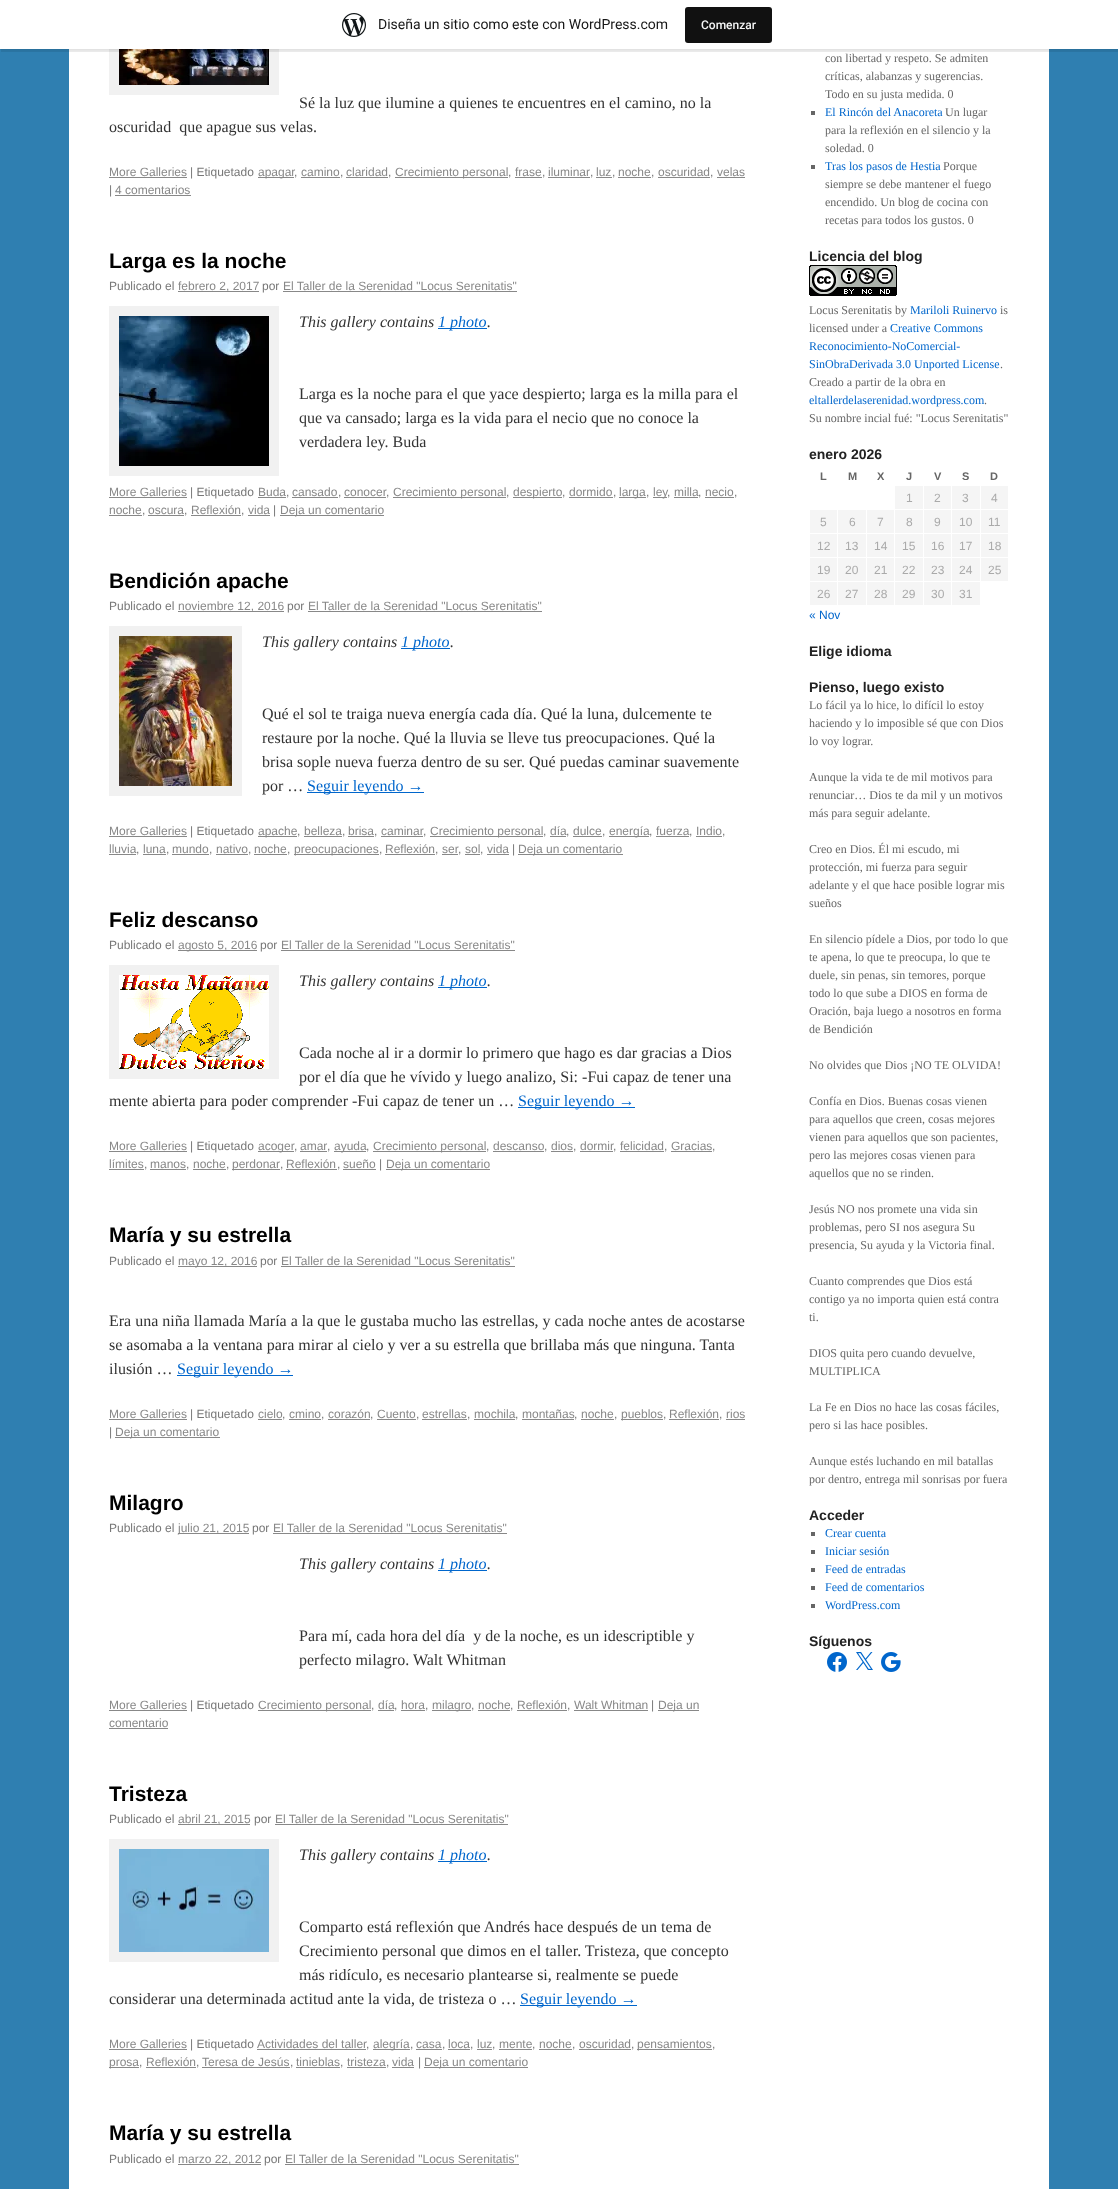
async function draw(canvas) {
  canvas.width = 1118;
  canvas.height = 2189;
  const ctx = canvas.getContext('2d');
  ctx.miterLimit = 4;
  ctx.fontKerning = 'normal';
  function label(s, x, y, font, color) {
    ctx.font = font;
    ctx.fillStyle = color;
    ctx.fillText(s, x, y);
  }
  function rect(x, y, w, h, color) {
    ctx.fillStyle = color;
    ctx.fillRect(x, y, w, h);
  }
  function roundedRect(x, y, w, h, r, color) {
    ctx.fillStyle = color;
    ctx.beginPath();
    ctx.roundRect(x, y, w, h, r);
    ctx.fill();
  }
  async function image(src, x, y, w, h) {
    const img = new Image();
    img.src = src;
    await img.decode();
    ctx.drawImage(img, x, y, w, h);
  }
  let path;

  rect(0, 0, 1118, 2189, '#2f7fb1');
  rect(69, 49, 980, 2140, '#fff');
  ctx.strokeStyle = '#f1f1f1';
  ctx.lineWidth = 10;
  ctx.strokeRect(114, 20, 160, 70);
  await image('assets/img2.png', 119, 49, 150, 36);
  ctx.fillStyle = '#0000000d';
  ctx.filter = 'blur(1px)';
  ctx.beginPath();
  ctx.rect(0, 1, 1118, 49);
  ctx.fill();
  ctx.filter = 'none';
  ctx.fillStyle = '#00000014';
  path = new Path2D('M1 49V52H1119V3H1118V49Z');
  ctx.fill(path);
  rect(0, 0, 1118, 49, '#fff');
  await image('assets/img1.png', 342, 13, 24, 24);
  label('Diseña un sitio como este con WordPress.com', 378, 29, '14px Roboto', '#171717');
  roundedRect(685, 7, 87, 36, 3, '#111');
  label('Comenzar', 701, 29, '500 12px Roboto', '#f6f7f7');
  label('Sé la luz que ilumine a quienes te encuentres en el camino, no la', 299, 108, '16px Liberation Serif', '#333');
  label('oscuridad  que apague sus velas.', 109, 132, '16px Liberation Serif', '#333');
  label('More Galleries', 109, 176, '12px Liberation Sans', '#888');
  rect(109, 177, 78, 1, '#888');
  label('| Etiquetado', 190, 176, '12px Liberation Sans', '#777');
  rect(258, 177, 36, 1, '#888');
  label('apagar', 258, 176, '12px Liberation Sans', '#888');
  label(',', 294, 176, '12px Liberation Sans', '#777');
  label('camino', 301, 176, '12px Liberation Sans', '#888');
  label(',', 340, 176, '12px Liberation Sans', '#777');
  rect(301, 177, 39, 1, '#888');
  label('claridad', 346, 176, '12px Liberation Sans', '#888');
  label(',', 388, 176, '12px Liberation Sans', '#777');
  rect(346, 177, 42, 1, '#888');
  rect(395, 177, 113, 1, '#888');
  label('Crecimiento personal', 395, 176, '12px Liberation Sans', '#888');
  label(',', 508, 176, '12px Liberation Sans', '#777');
  label('frase', 515, 176, '12px Liberation Sans', '#888');
  label(',', 542, 176, '12px Liberation Sans', '#777');
  rect(515, 177, 27, 1, '#888');
  label('iluminar', 548, 176, '12px Liberation Sans', '#888');
  label(',', 590, 176, '12px Liberation Sans', '#777');
  rect(548, 177, 42, 1, '#888');
  label('luz', 596, 176, '12px Liberation Sans', '#888');
  label(',', 612, 176, '12px Liberation Sans', '#777');
  rect(596, 177, 16, 1, '#888');
  label('noche', 618, 176, '12px Liberation Sans', '#888');
  label(',', 651, 176, '12px Liberation Sans', '#777');
  rect(618, 177, 33, 1, '#888');
  label('oscuridad', 658, 176, '12px Liberation Sans', '#888');
  label(',', 710, 176, '12px Liberation Sans', '#777');
  rect(658, 177, 52, 1, '#888');
  rect(717, 177, 28, 1, '#888');
  label('velas', 717, 176, '12px Liberation Sans', '#888');
  label('|', 109, 194, '12px Liberation Sans', '#777');
  label('4 comentarios', 115, 194, '12px Liberation Sans', '#888');
  rect(115, 195, 76, 1, '#888');
  label('Larga es la noche', 109, 268, 'bold 21px Liberation Sans', '#000');
  label('Publicado el', 109, 290, '12px Liberation Sans', '#777');
  rect(178, 291, 81, 1, '#888');
  label('febrero 2, 2017', 178, 290, '12px Liberation Sans', '#888');
  label('por', 262, 290, '12px Liberation Sans', '#777');
  label('El Taller de la Serenidad "Locus Serenitatis"', 283, 290, '12px Liberation Sans', '#888');
  rect(283, 291, 234, 1, '#888');
  ctx.strokeRect(114, 311, 160, 160);
  await image('assets/img3.png', 119, 316, 150, 150);
  label('This gallery contains', 299, 327, 'italic 16px Liberation Serif', '#333');
  rect(438, 328, 49, 1, '#06c');
  label('1 photo', 438, 327, 'italic 16px Liberation Serif', '#06c');
  label('.', 487, 327, 'italic 16px Liberation Serif', '#333');
  label('Larga es la noche para el que yace despierto; larga es la milla para el', 299, 399, '16px Liberation Serif', '#333');
  label('que va cansado; larga es la vida para el necio que no conoce la', 299, 423, '16px Liberation Serif', '#333');
  label('verdadera ley. Buda', 299, 447, '16px Liberation Serif', '#333');
  label('More Galleries', 109, 496, '12px Liberation Sans', '#888');
  rect(109, 497, 78, 1, '#888');
  label('| Etiquetado', 190, 496, '12px Liberation Sans', '#777');
  label('Buda', 258, 496, '12px Liberation Sans', '#888');
  label(',', 286, 496, '12px Liberation Sans', '#777');
  rect(258, 497, 28, 1, '#888');
  label('cansado', 292, 496, '12px Liberation Sans', '#888');
  label(',', 338, 496, '12px Liberation Sans', '#777');
  rect(292, 497, 46, 1, '#888');
  label('conocer', 344, 496, '12px Liberation Sans', '#888');
  label(',', 386, 496, '12px Liberation Sans', '#777');
  rect(344, 497, 42, 1, '#888');
  rect(393, 497, 113, 1, '#888');
  label('Crecimiento personal', 393, 496, '12px Liberation Sans', '#888');
  label(',', 506, 496, '12px Liberation Sans', '#777');
  rect(513, 497, 49, 1, '#888');
  label('despierto', 513, 496, '12px Liberation Sans', '#888');
  label(',', 562, 496, '12px Liberation Sans', '#777');
  label('dormido', 569, 496, '12px Liberation Sans', '#888');
  label(',', 613, 496, '12px Liberation Sans', '#777');
  rect(569, 497, 44, 1, '#888');
  rect(619, 497, 27, 1, '#888');
  label('larga', 619, 496, '12px Liberation Sans', '#888');
  label(',', 646, 496, '12px Liberation Sans', '#777');
  rect(653, 497, 14, 1, '#888');
  label('ley', 653, 496, '12px Liberation Sans', '#888');
  label(',', 667, 496, '12px Liberation Sans', '#777');
  label('milla', 674, 496, '12px Liberation Sans', '#888');
  label(',', 698, 496, '12px Liberation Sans', '#777');
  rect(674, 497, 24, 1, '#888');
  label('necio', 705, 496, '12px Liberation Sans', '#888');
  label(',', 734, 496, '12px Liberation Sans', '#777');
  rect(705, 497, 29, 1, '#888');
  label('noche', 109, 514, '12px Liberation Sans', '#888');
  label(',', 142, 514, '12px Liberation Sans', '#777');
  rect(109, 515, 33, 1, '#888');
  label('oscura', 148, 514, '12px Liberation Sans', '#888');
  label(',', 184, 514, '12px Liberation Sans', '#777');
  rect(148, 515, 36, 1, '#888');
  label('Reflexión', 191, 514, '12px Liberation Sans', '#888');
  label(',', 241, 514, '12px Liberation Sans', '#777');
  rect(191, 515, 50, 1, '#888');
  rect(248, 515, 22, 1, '#888');
  label('vida', 248, 514, '12px Liberation Sans', '#888');
  label('|', 273, 514, '12px Liberation Sans', '#777');
  rect(280, 515, 104, 1, '#888');
  label('Deja un comentario', 280, 514, '12px Liberation Sans', '#888');
  label('Bendición apache', 109, 588, 'bold 21px Liberation Sans', '#000');
  label('Publicado el', 109, 610, '12px Liberation Sans', '#777');
  rect(178, 611, 106, 1, '#888');
  label('noviembre 12, 2016', 178, 610, '12px Liberation Sans', '#888');
  label('por', 287, 610, '12px Liberation Sans', '#777');
  label('El Taller de la Serenidad "Locus Serenitatis"', 308, 610, '12px Liberation Sans', '#888');
  rect(308, 611, 234, 1, '#888');
  ctx.strokeRect(114, 631, 123, 160);
  await image('assets/img4.png', 119, 636, 113, 150);
  label('This gallery contains', 262, 647, 'italic 16px Liberation Serif', '#333');
  rect(401, 648, 49, 1, '#06c');
  label('1 photo', 401, 647, 'italic 16px Liberation Serif', '#06c');
  label('.', 450, 647, 'italic 16px Liberation Serif', '#333');
  label('Qué el sol te traiga nueva energía cada día. Qué la luna, dulcemente te', 262, 719, '16px Liberation Serif', '#333');
  label('restaure por la noche. Qué la lluvia se lleve tus preocupaciones. Qué la', 262, 743, '16px Liberation Serif', '#333');
  label('brisa sople nueva fuerza dentro de su ser. Qué puedas caminar suavemente', 262, 767, '16px Liberation Serif', '#333');
  label('por …', 262, 791, '16px Liberation Serif', '#333');
  rect(307, 792, 117, 1, '#06c');
  label('Seguir leyendo →', 307, 791, '16px Liberation Serif', '#06c');
  label('More Galleries', 109, 835, '12px Liberation Sans', '#888');
  rect(109, 836, 78, 1, '#888');
  label('| Etiquetado', 190, 835, '12px Liberation Sans', '#777');
  rect(258, 836, 39, 1, '#888');
  label('apache', 258, 835, '12px Liberation Sans', '#888');
  label(',', 297, 835, '12px Liberation Sans', '#777');
  label('belleza', 304, 835, '12px Liberation Sans', '#888');
  label(',', 342, 835, '12px Liberation Sans', '#777');
  rect(304, 836, 38, 1, '#888');
  label('brisa', 348, 835, '12px Liberation Sans', '#888');
  label(',', 374, 835, '12px Liberation Sans', '#777');
  rect(348, 836, 26, 1, '#888');
  label('caminar', 381, 835, '12px Liberation Sans', '#888');
  label(',', 423, 835, '12px Liberation Sans', '#777');
  rect(381, 836, 42, 1, '#888');
  rect(430, 836, 113, 1, '#888');
  label('Crecimiento personal', 430, 835, '12px Liberation Sans', '#888');
  label(',', 543, 835, '12px Liberation Sans', '#777');
  label('día', 550, 835, '12px Liberation Sans', '#888');
  label(',', 566, 835, '12px Liberation Sans', '#777');
  rect(550, 836, 16, 1, '#888');
  label('dulce', 573, 835, '12px Liberation Sans', '#888');
  label(',', 602, 835, '12px Liberation Sans', '#777');
  rect(573, 836, 29, 1, '#888');
  rect(609, 836, 40, 1, '#888');
  label('energía', 609, 835, '12px Liberation Sans', '#888');
  label(',', 649, 835, '12px Liberation Sans', '#777');
  label('fuerza', 656, 835, '12px Liberation Sans', '#888');
  label(',', 689, 835, '12px Liberation Sans', '#777');
  rect(656, 836, 33, 1, '#888');
  label('Indio', 696, 835, '12px Liberation Sans', '#888');
  label(',', 722, 835, '12px Liberation Sans', '#777');
  rect(696, 836, 26, 1, '#888');
  label('lluvia', 109, 853, '12px Liberation Sans', '#888');
  label(',', 136, 853, '12px Liberation Sans', '#777');
  rect(109, 854, 27, 1, '#888');
  label('luna', 143, 853, '12px Liberation Sans', '#888');
  label(',', 166, 853, '12px Liberation Sans', '#777');
  rect(143, 854, 23, 1, '#888');
  label('mundo', 172, 853, '12px Liberation Sans', '#888');
  label(',', 209, 853, '12px Liberation Sans', '#777');
  rect(172, 854, 37, 1, '#888');
  label('nativo', 216, 853, '12px Liberation Sans', '#888');
  label(',', 248, 853, '12px Liberation Sans', '#777');
  rect(216, 854, 32, 1, '#888');
  label('noche', 254, 853, '12px Liberation Sans', '#888');
  label(',', 287, 853, '12px Liberation Sans', '#777');
  rect(254, 854, 33, 1, '#888');
  rect(294, 854, 85, 1, '#888');
  label('preocupaciones', 294, 853, '12px Liberation Sans', '#888');
  label(',', 379, 853, '12px Liberation Sans', '#777');
  label('Reflexión', 385, 853, '12px Liberation Sans', '#888');
  label(',', 435, 853, '12px Liberation Sans', '#777');
  rect(385, 854, 50, 1, '#888');
  label('ser', 442, 853, '12px Liberation Sans', '#888');
  label(',', 458, 853, '12px Liberation Sans', '#777');
  rect(442, 854, 16, 1, '#888');
  label('sol', 465, 853, '12px Liberation Sans', '#888');
  label(',', 480, 853, '12px Liberation Sans', '#777');
  rect(465, 854, 15, 1, '#888');
  rect(487, 854, 22, 1, '#888');
  label('vida', 487, 853, '12px Liberation Sans', '#888');
  label('|', 512, 853, '12px Liberation Sans', '#777');
  rect(518, 854, 105, 1, '#888');
  label('Deja un comentario', 518, 853, '12px Liberation Sans', '#888');
  label('Feliz descanso', 109, 927, 'bold 21px Liberation Sans', '#000');
  label('Publicado el', 109, 949, '12px Liberation Sans', '#777');
  rect(178, 950, 79, 1, '#888');
  label('agosto 5, 2016', 178, 949, '12px Liberation Sans', '#888');
  label('por', 260, 949, '12px Liberation Sans', '#777');
  label('El Taller de la Serenidad "Locus Serenitatis"', 281, 949, '12px Liberation Sans', '#888');
  rect(281, 950, 234, 1, '#888');
  ctx.strokeRect(114, 970, 160, 104);
  await image('assets/img5.png', 119, 975, 150, 94);
  label('This gallery contains', 299, 986, 'italic 16px Liberation Serif', '#333');
  rect(438, 987, 49, 1, '#06c');
  label('1 photo', 438, 986, 'italic 16px Liberation Serif', '#06c');
  label('.', 487, 986, 'italic 16px Liberation Serif', '#333');
  label('Cada noche al ir a dormir lo primero que hago es dar gracias a Dios', 299, 1058, '16px Liberation Serif', '#333');
  label('por el día que he vívido y luego analizo, Si: -Fui capaz de tener una', 299, 1082, '16px Liberation Serif', '#333');
  label('mente abierta para poder comprender -Fui capaz de tener un …', 109, 1106, '16px Liberation Serif', '#333');
  rect(518, 1107, 117, 1, '#06c');
  label('Seguir leyendo →', 518, 1106, '16px Liberation Serif', '#06c');
  label('More Galleries', 109, 1150, '12px Liberation Sans', '#888');
  rect(109, 1151, 78, 1, '#888');
  label('| Etiquetado', 190, 1150, '12px Liberation Sans', '#777');
  rect(258, 1151, 36, 1, '#888');
  label('acoger', 258, 1150, '12px Liberation Sans', '#888');
  label('amar', 300, 1150, '12px Liberation Sans', '#888');
  rect(334, 1151, 32, 1, '#888');
  label('ayuda', 334, 1150, '12px Liberation Sans', '#888');
  rect(373, 1151, 113, 1, '#888');
  label('Crecimiento personal', 373, 1150, '12px Liberation Sans', '#888');
  label('descanso', 493, 1150, '12px Liberation Sans', '#888');
  label('dios', 551, 1150, '12px Liberation Sans', '#888');
  label('dormir', 580, 1150, '12px Liberation Sans', '#888');
  label('felicidad', 620, 1150, '12px Liberation Sans', '#888');
  label('Gracias', 671, 1150, '12px Liberation Sans', '#888');
  label(',', 294, 1150, '12px Liberation Sans', '#777');
  label(',', 327, 1150, '12px Liberation Sans', '#777');
  rect(300, 1151, 27, 1, '#888');
  label(',', 366, 1150, '12px Liberation Sans', '#777');
  label(',', 486, 1150, '12px Liberation Sans', '#777');
  label(',', 544, 1150, '12px Liberation Sans', '#777');
  rect(493, 1151, 51, 1, '#888');
  label(',', 573, 1150, '12px Liberation Sans', '#777');
  rect(551, 1151, 22, 1, '#888');
  label(',', 613, 1150, '12px Liberation Sans', '#777');
  rect(580, 1151, 33, 1, '#888');
  label(',', 664, 1150, '12px Liberation Sans', '#777');
  rect(620, 1151, 44, 1, '#888');
  label(',', 712, 1150, '12px Liberation Sans', '#777');
  rect(671, 1151, 41, 1, '#888');
  label('límites', 109, 1168, '12px Liberation Sans', '#888');
  label(',', 144, 1168, '12px Liberation Sans', '#777');
  rect(109, 1169, 35, 1, '#888');
  label('manos', 150, 1168, '12px Liberation Sans', '#888');
  label(',', 186, 1168, '12px Liberation Sans', '#777');
  rect(150, 1169, 36, 1, '#888');
  label('noche', 193, 1168, '12px Liberation Sans', '#888');
  label(',', 226, 1168, '12px Liberation Sans', '#777');
  rect(193, 1169, 33, 1, '#888');
  rect(232, 1169, 48, 1, '#888');
  label('perdonar', 232, 1168, '12px Liberation Sans', '#888');
  label(',', 280, 1168, '12px Liberation Sans', '#777');
  label('Reflexión', 286, 1168, '12px Liberation Sans', '#888');
  label(',', 337, 1168, '12px Liberation Sans', '#777');
  rect(286, 1169, 51, 1, '#888');
  rect(343, 1169, 33, 1, '#888');
  label('sueño', 343, 1168, '12px Liberation Sans', '#888');
  label('|', 379, 1168, '12px Liberation Sans', '#777');
  rect(386, 1169, 104, 1, '#888');
  label('Deja un comentario', 386, 1168, '12px Liberation Sans', '#888');
  label('María y su estrella', 109, 1242, 'bold 21px Liberation Sans', '#000');
  label('Publicado el', 109, 1265, '12px Liberation Sans', '#777');
  rect(178, 1266, 79, 1, '#888');
  label('mayo 12, 2016', 178, 1265, '12px Liberation Sans', '#888');
  label('por', 260, 1265, '12px Liberation Sans', '#777');
  label('El Taller de la Serenidad "Locus Serenitatis"', 281, 1265, '12px Liberation Sans', '#888');
  rect(281, 1266, 234, 1, '#888');
  label('Era una niña llamada María a la que le gustaba mucho las estrellas, y cada noche antes de acostarse', 109, 1326, '16px Liberation Serif', '#333');
  label('se asomaba a la ventana para mirar al cielo y ver a su estrella que brillaba más que ninguna. Tanta', 109, 1350, '16px Liberation Serif', '#333');
  label('ilusión …', 109, 1374, '16px Liberation Serif', '#333');
  rect(177, 1375, 116, 1, '#06c');
  label('Seguir leyendo →', 177, 1374, '16px Liberation Serif', '#06c');
  label('More Galleries', 109, 1418, '12px Liberation Sans', '#888');
  rect(109, 1419, 78, 1, '#888');
  label('| Etiquetado', 190, 1418, '12px Liberation Sans', '#777');
  label('cielo', 258, 1418, '12px Liberation Sans', '#888');
  label(',', 282, 1418, '12px Liberation Sans', '#777');
  rect(258, 1419, 24, 1, '#888');
  label('cmino', 289, 1418, '12px Liberation Sans', '#888');
  label(',', 321, 1418, '12px Liberation Sans', '#777');
  rect(289, 1419, 32, 1, '#888');
  label('corazón', 328, 1418, '12px Liberation Sans', '#888');
  label(',', 370, 1418, '12px Liberation Sans', '#777');
  rect(328, 1419, 42, 1, '#888');
  label('Cuento', 377, 1418, '12px Liberation Sans', '#888');
  label(',', 416, 1418, '12px Liberation Sans', '#777');
  rect(377, 1419, 39, 1, '#888');
  label('estrellas', 422, 1418, '12px Liberation Sans', '#888');
  label(',', 467, 1418, '12px Liberation Sans', '#777');
  rect(422, 1419, 45, 1, '#888');
  label('mochila', 474, 1418, '12px Liberation Sans', '#888');
  label(',', 515, 1418, '12px Liberation Sans', '#777');
  rect(474, 1419, 41, 1, '#888');
  label('montañas', 522, 1418, '12px Liberation Sans', '#888');
  label(',', 574, 1418, '12px Liberation Sans', '#777');
  rect(522, 1419, 52, 1, '#888');
  label('noche', 581, 1418, '12px Liberation Sans', '#888');
  label(',', 614, 1418, '12px Liberation Sans', '#777');
  rect(581, 1419, 33, 1, '#888');
  rect(621, 1419, 42, 1, '#888');
  label('pueblos', 621, 1418, '12px Liberation Sans', '#888');
  label(',', 663, 1418, '12px Liberation Sans', '#777');
  label('Reflexión', 669, 1418, '12px Liberation Sans', '#888');
  label(',', 719, 1418, '12px Liberation Sans', '#777');
  rect(669, 1419, 50, 1, '#888');
  rect(726, 1419, 19, 1, '#888');
  label('rios', 726, 1418, '12px Liberation Sans', '#888');
  label('|', 109, 1436, '12px Liberation Sans', '#777');
  rect(115, 1437, 105, 1, '#888');
  label('Deja un comentario', 115, 1436, '12px Liberation Sans', '#888');
  label('Milagro', 109, 1510, 'bold 21px Liberation Sans', '#000');
  label('Publicado el', 109, 1532, '12px Liberation Sans', '#777');
  rect(178, 1533, 71, 1, '#888');
  label('julio 21, 2015', 178, 1532, '12px Liberation Sans', '#888');
  label('por', 252, 1532, '12px Liberation Sans', '#777');
  label('El Taller de la Serenidad "Locus Serenitatis"', 273, 1532, '12px Liberation Sans', '#888');
  rect(273, 1533, 234, 1, '#888');
  label('This gallery contains', 299, 1569, 'italic 16px Liberation Serif', '#333');
  rect(438, 1570, 49, 1, '#06c');
  label('1 photo', 438, 1569, 'italic 16px Liberation Serif', '#06c');
  label('.', 487, 1569, 'italic 16px Liberation Serif', '#333');
  label('Para mí, cada hora del día  y de la noche, es un idescriptible y', 299, 1641, '16px Liberation Serif', '#333');
  label('perfecto milagro. Walt Whitman', 299, 1665, '16px Liberation Serif', '#333');
  label('More Galleries', 109, 1709, '12px Liberation Sans', '#888');
  rect(109, 1710, 78, 1, '#888');
  label('| Etiquetado', 190, 1709, '12px Liberation Sans', '#777');
  rect(258, 1710, 113, 1, '#888');
  label('Crecimiento personal', 258, 1709, '12px Liberation Sans', '#888');
  label(',', 371, 1709, '12px Liberation Sans', '#777');
  label('día', 378, 1709, '12px Liberation Sans', '#888');
  label(',', 394, 1709, '12px Liberation Sans', '#777');
  rect(378, 1710, 16, 1, '#888');
  label('hora', 401, 1709, '12px Liberation Sans', '#888');
  label(',', 425, 1709, '12px Liberation Sans', '#777');
  rect(401, 1710, 24, 1, '#888');
  rect(432, 1710, 39, 1, '#888');
  label('milagro', 432, 1709, '12px Liberation Sans', '#888');
  label(',', 471, 1709, '12px Liberation Sans', '#777');
  label('noche', 478, 1709, '12px Liberation Sans', '#888');
  label(',', 510, 1709, '12px Liberation Sans', '#777');
  rect(478, 1710, 32, 1, '#888');
  label('Reflexión', 517, 1709, '12px Liberation Sans', '#888');
  label(',', 567, 1709, '12px Liberation Sans', '#777');
  rect(517, 1710, 50, 1, '#888');
  rect(574, 1710, 74, 1, '#888');
  label('Walt Whitman', 574, 1709, '12px Liberation Sans', '#888');
  label('|', 651, 1709, '12px Liberation Sans', '#777');
  rect(658, 1710, 41, 1, '#888');
  label('Deja un', 658, 1709, '12px Liberation Sans', '#888');
  label('comentario', 109, 1727, '12px Liberation Sans', '#888');
  rect(109, 1728, 59, 1, '#888');
  label('Tristeza', 109, 1801, 'bold 21px Liberation Sans', '#000');
  label('Publicado el', 109, 1823, '12px Liberation Sans', '#777');
  rect(178, 1824, 72, 1, '#888');
  label('abril 21, 2015', 178, 1823, '12px Liberation Sans', '#888');
  label('por', 254, 1823, '12px Liberation Sans', '#777');
  label('El Taller de la Serenidad "Locus Serenitatis"', 275, 1823, '12px Liberation Sans', '#888');
  rect(275, 1824, 233, 1, '#888');
  ctx.strokeRect(114, 1844, 160, 113);
  await image('assets/img6.png', 119, 1849, 150, 103);
  label('This gallery contains', 299, 1860, 'italic 16px Liberation Serif', '#333');
  rect(438, 1861, 49, 1, '#06c');
  label('1 photo', 438, 1860, 'italic 16px Liberation Serif', '#06c');
  label('.', 487, 1860, 'italic 16px Liberation Serif', '#333');
  label('Comparto está reflexión que Andrés hace después de un tema de', 299, 1932, '16px Liberation Serif', '#333');
  label('Crecimiento personal que dimos en el taller. Tristeza, que concepto', 299, 1956, '16px Liberation Serif', '#333');
  label('más ridículo, es necesario plantearse si, realmente se puede', 299, 1980, '16px Liberation Serif', '#333');
  label('considerar una determinada actitud ante la vida, de tristeza o …', 109, 2004, '16px Liberation Serif', '#333');
  rect(520, 2005, 117, 1, '#06c');
  label('Seguir leyendo →', 520, 2004, '16px Liberation Serif', '#06c');
  label('More Galleries', 109, 2048, '12px Liberation Sans', '#888');
  rect(109, 2049, 78, 1, '#888');
  label('| Etiquetado', 190, 2048, '12px Liberation Sans', '#777');
  label('Actividades del taller', 257, 2048, '12px Liberation Sans', '#888');
  label(',', 366, 2048, '12px Liberation Sans', '#777');
  rect(257, 2049, 109, 1, '#888');
  rect(373, 2049, 37, 1, '#888');
  label('alegría', 373, 2048, '12px Liberation Sans', '#888');
  label(',', 410, 2048, '12px Liberation Sans', '#777');
  label('casa', 416, 2048, '12px Liberation Sans', '#888');
  label(',', 442, 2048, '12px Liberation Sans', '#777');
  rect(416, 2049, 26, 1, '#888');
  label('loca', 448, 2048, '12px Liberation Sans', '#888');
  label(',', 470, 2048, '12px Liberation Sans', '#777');
  rect(448, 2049, 22, 1, '#888');
  label('luz', 477, 2048, '12px Liberation Sans', '#888');
  label(',', 492, 2048, '12px Liberation Sans', '#777');
  rect(477, 2049, 15, 1, '#888');
  label('mente', 499, 2048, '12px Liberation Sans', '#888');
  label(',', 532, 2048, '12px Liberation Sans', '#777');
  rect(499, 2049, 33, 1, '#888');
  label('noche', 539, 2048, '12px Liberation Sans', '#888');
  label(',', 572, 2048, '12px Liberation Sans', '#777');
  rect(539, 2049, 33, 1, '#888');
  label('oscuridad', 579, 2048, '12px Liberation Sans', '#888');
  label(',', 631, 2048, '12px Liberation Sans', '#777');
  rect(579, 2049, 52, 1, '#888');
  rect(637, 2049, 75, 1, '#888');
  label('pensamientos', 637, 2048, '12px Liberation Sans', '#888');
  label(',', 712, 2048, '12px Liberation Sans', '#777');
  rect(109, 2067, 30, 1, '#888');
  label('prosa', 109, 2066, '12px Liberation Sans', '#888');
  label(',', 139, 2066, '12px Liberation Sans', '#777');
  label('Reflexión', 146, 2066, '12px Liberation Sans', '#888');
  label(',', 196, 2066, '12px Liberation Sans', '#777');
  rect(146, 2067, 50, 1, '#888');
  label('Teresa de Jesús', 202, 2066, '12px Liberation Sans', '#888');
  label(',', 290, 2066, '12px Liberation Sans', '#777');
  rect(202, 2067, 88, 1, '#888');
  label('tinieblas', 296, 2066, '12px Liberation Sans', '#888');
  label(',', 340, 2066, '12px Liberation Sans', '#777');
  rect(296, 2067, 44, 1, '#888');
  label('tristeza', 347, 2066, '12px Liberation Sans', '#888');
  label(',', 386, 2066, '12px Liberation Sans', '#777');
  rect(347, 2067, 39, 1, '#888');
  rect(392, 2067, 22, 1, '#888');
  label('vida', 392, 2066, '12px Liberation Sans', '#888');
  label('|', 418, 2066, '12px Liberation Sans', '#777');
  rect(424, 2067, 104, 1, '#888');
  label('Deja un comentario', 424, 2066, '12px Liberation Sans', '#888');
  label('María y su estrella', 109, 2140, 'bold 21px Liberation Sans', '#000');
  label('Publicado el', 109, 2163, '12px Liberation Sans', '#777');
  rect(178, 2164, 83, 1, '#888');
  label('marzo 22, 2012', 178, 2163, '12px Liberation Sans', '#888');
  label('por', 264, 2163, '12px Liberation Sans', '#777');
  label('El Taller de la Serenidad "Locus Serenitatis"', 285, 2163, '12px Liberation Sans', '#888');
  rect(285, 2164, 234, 1, '#888');
  label('con libertad y respeto. Se admiten', 825, 62, '12px Liberation Serif', '#666');
  label('críticas, alabanzas y sugerencias.', 825, 80, '12px Liberation Serif', '#666');
  label('Todo en su justa medida. 0', 825, 98, '12px Liberation Serif', '#666');
  rect(811, 111, 4, 4, '#666');
  label('El Rincón del Anacoreta', 825, 116, '12px Liberation Serif', '#06c');
  label('Un lugar', 945, 116, '12px Liberation Serif', '#666');
  label('para la reflexión en el silencio y la', 825, 134, '12px Liberation Serif', '#666');
  label('soledad. 0', 825, 152, '12px Liberation Serif', '#666');
  rect(811, 165, 4, 4, '#666');
  label('Tras los pasos de Hestia', 825, 170, '12px Liberation Serif', '#06c');
  label('Porque', 943, 170, '12px Liberation Serif', '#666');
  label('siempre se debe mantener el fuego', 825, 188, '12px Liberation Serif', '#666');
  label('encendido. Un blog de cocina con', 825, 206, '12px Liberation Serif', '#666');
  label('recetas para todos los gustos. 0', 825, 224, '12px Liberation Serif', '#666');
  label('Licencia del blog', 809, 261, 'bold 14px Liberation Sans', '#222');
  await image('assets/img7.png', 809, 265, 88, 31);
  label('Locus Serenitatis by', 809, 314, '12px Liberation Serif', '#666');
  label('Mariloli Ruinervo', 910, 314, '12px Liberation Serif', '#06c');
  label('is', 1000, 314, '12px Liberation Serif', '#666');
  label('licensed under a', 809, 332, '12px Liberation Serif', '#666');
  label('Creative Commons', 890, 332, '12px Liberation Serif', '#06c');
  label('Reconocimiento-NoComercial-', 809, 350, '12px Liberation Serif', '#06c');
  label('SinObraDerivada 3.0 Unported License', 809, 368, '12px Liberation Serif', '#06c');
  label('.', 1000, 368, '12px Liberation Serif', '#666');
  label('Creado a partir de la obra en', 809, 386, '12px Liberation Serif', '#666');
  label('eltallerdelaserenidad.wordpress.com', 809, 404, '12px Liberation Serif', '#06c');
  label('.', 984, 404, '12px Liberation Serif', '#666');
  label('Su nombre incial fué: "Locus Serenitatis"', 809, 422, '12px Liberation Serif', '#666');
  label('enero 2026', 809, 459, 'bold 14px Liberation Sans', '#222');
  label('L', 820, 480, 'bold 11px Liberation Sans', '#666');
  label('M', 848, 480, 'bold 11px Liberation Sans', '#666');
  label('X', 877, 480, 'bold 11px Liberation Sans', '#666');
  label('J', 906, 480, 'bold 11px Liberation Sans', '#666');
  label('V', 934, 480, 'bold 11px Liberation Sans', '#666');
  label('S', 962, 480, 'bold 11px Liberation Sans', '#666');
  label('D', 990, 480, 'bold 11px Liberation Sans', '#666');
  rect(895, 486, 28, 23, '#f5f5f5');
  label('1', 906, 502, '12px Liberation Sans', '#aaa');
  rect(924, 486, 27, 23, '#f5f5f5');
  label('2', 934, 502, '12px Liberation Sans', '#aaa');
  rect(952, 486, 28, 23, '#f5f5f5');
  label('3', 962, 502, '12px Liberation Sans', '#aaa');
  rect(981, 486, 27, 23, '#f5f5f5');
  label('4', 991, 502, '12px Liberation Sans', '#aaa');
  rect(810, 510, 27, 23, '#f5f5f5');
  label('5', 820, 526, '12px Liberation Sans', '#aaa');
  rect(838, 510, 28, 23, '#f5f5f5');
  label('6', 849, 526, '12px Liberation Sans', '#aaa');
  rect(867, 510, 27, 23, '#f5f5f5');
  label('7', 877, 526, '12px Liberation Sans', '#aaa');
  rect(895, 510, 28, 23, '#f5f5f5');
  label('8', 906, 526, '12px Liberation Sans', '#aaa');
  rect(924, 510, 27, 23, '#f5f5f5');
  label('9', 934, 526, '12px Liberation Sans', '#aaa');
  rect(952, 510, 28, 23, '#f5f5f5');
  label('10', 959, 526, '12px Liberation Sans', '#aaa');
  rect(981, 510, 27, 23, '#f5f5f5');
  label('11', 988, 526, '12px Liberation Sans', '#aaa');
  rect(810, 534, 27, 23, '#f5f5f5');
  label('12', 817, 550, '12px Liberation Sans', '#aaa');
  rect(838, 534, 28, 23, '#f5f5f5');
  label('13', 845, 550, '12px Liberation Sans', '#aaa');
  rect(867, 534, 27, 23, '#f5f5f5');
  label('14', 874, 550, '12px Liberation Sans', '#aaa');
  rect(895, 534, 28, 23, '#f5f5f5');
  label('15', 902, 550, '12px Liberation Sans', '#aaa');
  rect(924, 534, 27, 23, '#f5f5f5');
  label('16', 931, 550, '12px Liberation Sans', '#aaa');
  rect(952, 534, 28, 23, '#f5f5f5');
  label('17', 959, 550, '12px Liberation Sans', '#aaa');
  rect(981, 534, 27, 23, '#f5f5f5');
  label('18', 988, 550, '12px Liberation Sans', '#aaa');
  rect(810, 558, 27, 23, '#f5f5f5');
  label('19', 817, 574, '12px Liberation Sans', '#aaa');
  rect(838, 558, 28, 23, '#f5f5f5');
  label('20', 845, 574, '12px Liberation Sans', '#aaa');
  rect(867, 558, 27, 23, '#f5f5f5');
  label('21', 874, 574, '12px Liberation Sans', '#aaa');
  rect(895, 558, 28, 23, '#f5f5f5');
  label('22', 902, 574, '12px Liberation Sans', '#aaa');
  rect(924, 558, 27, 23, '#f5f5f5');
  label('23', 931, 574, '12px Liberation Sans', '#aaa');
  rect(952, 558, 28, 23, '#f5f5f5');
  label('24', 959, 574, '12px Liberation Sans', '#aaa');
  rect(981, 558, 27, 23, '#f5f5f5');
  label('25', 988, 574, '12px Liberation Sans', '#aaa');
  rect(810, 582, 27, 23, '#f5f5f5');
  label('26', 817, 598, '12px Liberation Sans', '#aaa');
  rect(838, 582, 28, 23, '#f5f5f5');
  label('27', 845, 598, '12px Liberation Sans', '#aaa');
  rect(867, 582, 27, 23, '#f5f5f5');
  label('28', 874, 598, '12px Liberation Sans', '#aaa');
  rect(895, 582, 28, 23, '#f5f5f5');
  label('29', 902, 598, '12px Liberation Sans', '#aaa');
  rect(924, 582, 27, 23, '#f5f5f5');
  label('30', 931, 598, '12px Liberation Sans', '#aaa');
  rect(952, 582, 28, 23, '#f5f5f5');
  label('31', 959, 598, '12px Liberation Sans', '#aaa');
  label('« Nov', 809, 619, '12px Liberation Sans', '#06c');
  label('Elige idioma', 809, 656, 'bold 14px Liberation Sans', '#222');
  label('Pienso, luego existo', 809, 692, 'bold 14px Liberation Sans', '#222');
  label('Lo fácil ya lo hice, lo difícil lo estoy', 809, 709, '12px Liberation Serif', '#666');
  label('haciendo y lo imposible sé que con Dios', 809, 727, '12px Liberation Serif', '#666');
  label('lo voy lograr.', 809, 745, '12px Liberation Serif', '#666');
  label('Aunque la vida te de mil motivos para', 809, 781, '12px Liberation Serif', '#666');
  label('renunciar… Dios te da mil y un motivos', 809, 799, '12px Liberation Serif', '#666');
  label('más para seguir adelante.', 809, 817, '12px Liberation Serif', '#666');
  label('Creo en Dios. Él mi escudo, mi', 809, 853, '12px Liberation Serif', '#666');
  label('protección, mi fuerza para seguir', 809, 871, '12px Liberation Serif', '#666');
  label('adelante y el que hace posible lograr mis', 809, 889, '12px Liberation Serif', '#666');
  label('sueños', 809, 907, '12px Liberation Serif', '#666');
  label('En silencio pídele a Dios, por todo lo que', 809, 943, '12px Liberation Serif', '#666');
  label('te apena, lo que te preocupa, lo que te', 809, 961, '12px Liberation Serif', '#666');
  label('duele, sin penas, sin temores, porque', 809, 979, '12px Liberation Serif', '#666');
  label('todo lo que sube a DIOS en forma de', 809, 997, '12px Liberation Serif', '#666');
  label('Oración, baja luego a nosotros en forma', 809, 1015, '12px Liberation Serif', '#666');
  label('de Bendición', 809, 1033, '12px Liberation Serif', '#666');
  label('No olvides que Dios ¡NO TE OLVIDA!', 809, 1069, '12px Liberation Serif', '#666');
  label('Confía en Dios. Buenas cosas vienen', 809, 1105, '12px Liberation Serif', '#666');
  label('para aquellos que creen, cosas mejores', 809, 1123, '12px Liberation Serif', '#666');
  label('vienen para aquellos que son pacientes,', 809, 1141, '12px Liberation Serif', '#666');
  label('pero las mejores cosas vienen para', 809, 1159, '12px Liberation Serif', '#666');
  label('aquellos que no se rinden.', 809, 1177, '12px Liberation Serif', '#666');
  label('Jesús NO nos promete una vida sin', 809, 1213, '12px Liberation Serif', '#666');
  label('problemas, pero SI nos asegura Su', 809, 1231, '12px Liberation Serif', '#666');
  label('presencia, Su ayuda y la Victoria final.', 809, 1249, '12px Liberation Serif', '#666');
  label('Cuanto comprendes que Dios está', 809, 1285, '12px Liberation Serif', '#666');
  label('contigo ya no importa quien está contra', 809, 1303, '12px Liberation Serif', '#666');
  label('ti.', 809, 1321, '12px Liberation Serif', '#666');
  label('DIOS quita pero cuando devuelve,', 809, 1357, '12px Liberation Serif', '#666');
  label('MULTIPLICA', 809, 1375, '12px Liberation Serif', '#666');
  label('La Fe en Dios no hace las cosas fáciles,', 809, 1411, '12px Liberation Serif', '#666');
  label('pero si las hace posibles.', 809, 1429, '12px Liberation Serif', '#666');
  label('Aunque estés luchando en mil batallas', 809, 1465, '12px Liberation Serif', '#666');
  label('por dentro, entrega mil sonrisas por fuera', 809, 1483, '12px Liberation Serif', '#666');
  label('Acceder', 809, 1520, 'bold 14px Liberation Sans', '#222');
  rect(811, 1532, 4, 4, '#666');
  label('Crear cuenta', 825, 1537, '12px Liberation Serif', '#06c');
  rect(811, 1550, 4, 4, '#666');
  label('Iniciar sesión', 825, 1555, '12px Liberation Serif', '#06c');
  rect(811, 1568, 4, 4, '#666');
  label('Feed de entradas', 825, 1573, '12px Liberation Serif', '#06c');
  rect(811, 1586, 4, 4, '#666');
  label('Feed de comentarios', 825, 1591, '12px Liberation Serif', '#06c');
  rect(811, 1604, 4, 4, '#666');
  label('WordPress.com', 825, 1609, '12px Liberation Serif', '#06c');
  label('Síguenos', 809, 1646, 'bold 14px Liberation Sans', '#222');
  await image('assets/img8.png', 827, 1652, 20, 20);
  await image('assets/img9.png', 856, 1652, 17, 18);
  await image('assets/img10.png', 881, 1652, 20, 20);
}

draw(document.querySelector('canvas'));
